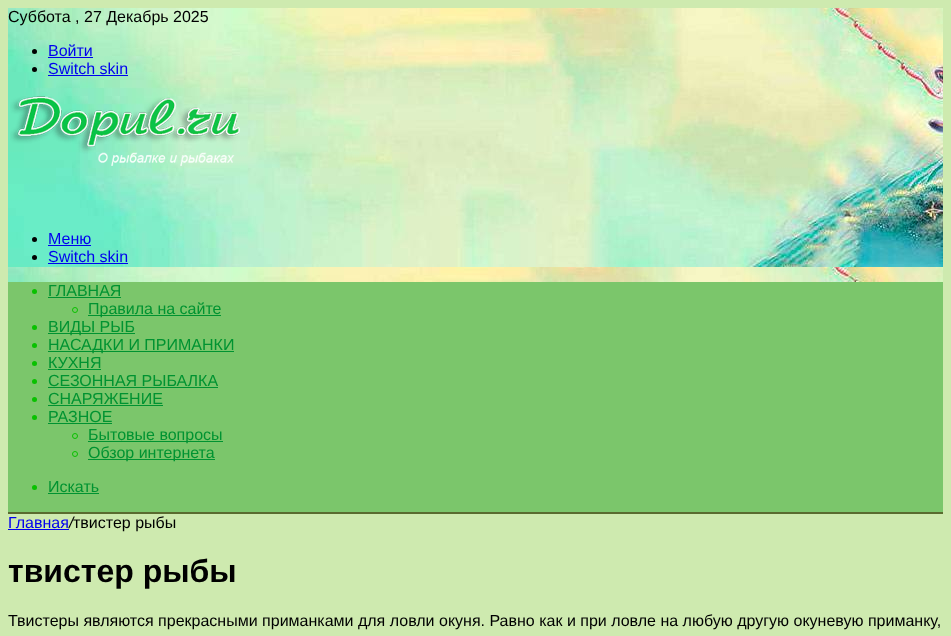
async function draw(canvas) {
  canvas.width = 951;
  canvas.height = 636;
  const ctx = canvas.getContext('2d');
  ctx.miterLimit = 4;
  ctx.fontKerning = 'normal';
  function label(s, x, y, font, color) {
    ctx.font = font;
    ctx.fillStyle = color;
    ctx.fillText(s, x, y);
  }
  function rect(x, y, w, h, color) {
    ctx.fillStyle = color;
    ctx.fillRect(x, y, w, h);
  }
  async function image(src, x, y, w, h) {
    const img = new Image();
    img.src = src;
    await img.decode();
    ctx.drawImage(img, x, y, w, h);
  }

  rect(0, 0, 951, 636, '#ceeaaf');
  await image('assets/img1.png', 8, 8, 935, 274);
  label('Суббота , 27 Декабрь 2025', 8, 22, '16px Liberation Sans', '#000');
  ctx.beginPath();
  ctx.arc(34.5, 51.5, 2.5, 0, 2 * Math.PI);
  ctx.fill();
  label('Войти', 48, 56, '16px Liberation Sans', '#00e');
  rect(48, 57, 45, 1, '#00e');
  ctx.fillStyle = '#000';
  ctx.beginPath();
  ctx.arc(34.5, 69.5, 2.5, 0, 2 * Math.PI);
  ctx.fill();
  label('Switch skin', 48, 74, '16px Liberation Sans', '#00e');
  rect(48, 75, 80, 1, '#00e');
  await image('assets/img2.png', 10, 96, 230, 70);
  ctx.fillStyle = '#000';
  ctx.beginPath();
  ctx.arc(34.5, 239.5, 2.5, 0, 2 * Math.PI);
  ctx.fill();
  label('Меню', 48, 244, '16px Liberation Sans', '#00e');
  rect(48, 245, 43, 1, '#00e');
  ctx.fillStyle = '#000';
  ctx.beginPath();
  ctx.arc(34.5, 257.5, 2.5, 0, 2 * Math.PI);
  ctx.fill();
  label('Switch skin', 48, 262, '16px Liberation Sans', '#00e');
  rect(48, 263, 80, 1, '#00e');
  rect(8, 282, 935, 230, '#7bc66b');
  rect(8, 512, 935, 2, '#596b2f');
  ctx.fillStyle = '#09c100';
  ctx.beginPath();
  ctx.arc(34.5, 291.5, 2.5, 0, 2 * Math.PI);
  ctx.fill();
  label('ГЛАВНАЯ', 48, 296, '16px Liberation Sans', '#009331');
  rect(48, 297, 73, 1, '#009331');
  ctx.beginPath();
  ctx.arc(75, 310, 2.5, 0, 2 * Math.PI);
  ctx.strokeStyle = '#09c100';
  ctx.stroke();
  rect(88, 315, 133, 1, '#009331');
  label('Правила на сайте', 88, 314, '16px Liberation Sans', '#009331');
  ctx.fillStyle = '#09c100';
  ctx.beginPath();
  ctx.arc(34.5, 327.5, 2.5, 0, 2 * Math.PI);
  ctx.fill();
  rect(48, 333, 87, 1, '#009331');
  label('ВИДЫ РЫБ', 48, 332, '16px Liberation Sans', '#009331');
  ctx.fillStyle = '#09c100';
  ctx.beginPath();
  ctx.arc(34.5, 345.5, 2.5, 0, 2 * Math.PI);
  ctx.fill();
  rect(48, 351, 186, 1, '#009331');
  label('НАСАДКИ И ПРИМАНКИ', 48, 350, '16px Liberation Sans', '#009331');
  ctx.fillStyle = '#09c100';
  ctx.beginPath();
  ctx.arc(34.5, 363.5, 2.5, 0, 2 * Math.PI);
  ctx.fill();
  label('КУХНЯ', 48, 368, '16px Liberation Sans', '#009331');
  rect(48, 369, 53, 1, '#009331');
  ctx.fillStyle = '#09c100';
  ctx.beginPath();
  ctx.arc(34.5, 381.5, 2.5, 0, 2 * Math.PI);
  ctx.fill();
  label('СЕЗОННАЯ РЫБАЛКА', 48, 386, '16px Liberation Sans', '#009331');
  rect(48, 387, 170, 1, '#009331');
  ctx.fillStyle = '#09c100';
  ctx.beginPath();
  ctx.arc(34.5, 399.5, 2.5, 0, 2 * Math.PI);
  ctx.fill();
  label('СНАРЯЖЕНИЕ', 48, 404, '16px Liberation Sans', '#009331');
  rect(48, 405, 115, 1, '#009331');
  ctx.fillStyle = '#09c100';
  ctx.beginPath();
  ctx.arc(34.5, 417.5, 2.5, 0, 2 * Math.PI);
  ctx.fill();
  label('РАЗНОЕ', 48, 422, '16px Liberation Sans', '#009331');
  rect(48, 423, 64, 1, '#009331');
  ctx.beginPath();
  ctx.arc(75, 436, 2.5, 0, 2 * Math.PI);
  ctx.stroke();
  rect(88, 441, 135, 1, '#009331');
  label('Бытовые вопросы', 88, 440, '16px Liberation Sans', '#009331');
  ctx.beginPath();
  ctx.arc(75, 454, 2.5, 0, 2 * Math.PI);
  ctx.stroke();
  rect(88, 459, 127, 1, '#009331');
  label('Обзор интернета', 88, 458, '16px Liberation Sans', '#009331');
  ctx.fillStyle = '#09c100';
  ctx.beginPath();
  ctx.arc(34.5, 487.5, 2.5, 0, 2 * Math.PI);
  ctx.fill();
  label('Искать', 48, 492, '16px Liberation Sans', '#009331');
  rect(48, 493, 51, 1, '#009331');
  label('Главная', 8, 528, '16px Liberation Sans', '#00e');
  rect(8, 529, 61, 1, '#00e');
  label('/', 69, 528, 'italic 16px Liberation Sans', '#000');
  label('твистер рыбы', 73, 528, '16px Liberation Sans', '#000');
  label('твистер рыбы', 8, 582, 'bold 32px Liberation Sans', '#000');
  label('Твистеры являются прекрасными приманками для ловли окуня. Равно как и при ловле на любую другую окуневую приманку,', 8, 626, '16px Liberation Sans', '#000');
}

draw(document.querySelector('canvas'));
